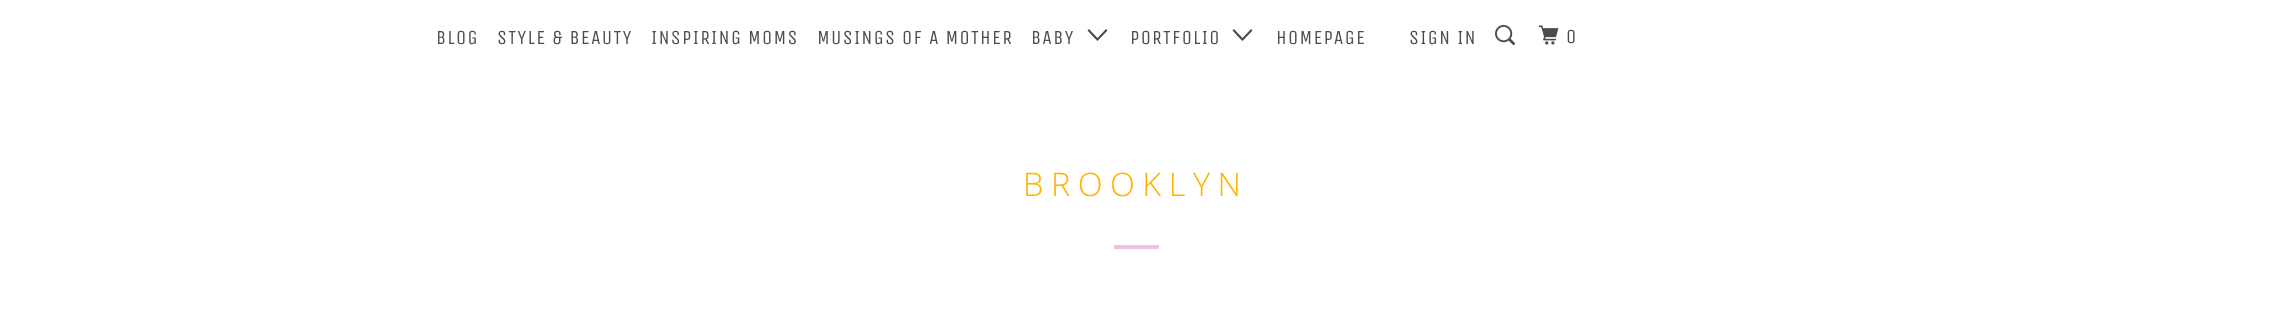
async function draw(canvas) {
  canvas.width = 2271;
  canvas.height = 336;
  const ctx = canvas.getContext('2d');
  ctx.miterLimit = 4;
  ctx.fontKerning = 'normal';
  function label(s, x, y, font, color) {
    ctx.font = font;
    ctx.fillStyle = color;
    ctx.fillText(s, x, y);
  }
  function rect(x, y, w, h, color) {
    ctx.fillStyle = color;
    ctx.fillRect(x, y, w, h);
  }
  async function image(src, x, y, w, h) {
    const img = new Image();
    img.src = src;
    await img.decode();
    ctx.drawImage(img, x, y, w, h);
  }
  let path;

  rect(0, 0, 2271, 336, '#fff');
  ctx.letterSpacing = '1.25px';
  label('BLOG', 436, 44, '20px Unica One', '#494c50');
  label('STYLE & BEAUTY', 497, 44, '20px Unica One', '#494c50');
  label('INSPIRING MOMS', 651, 44, '20px Unica One', '#494c50');
  label('MUSINGS OF A MOTHER', 817, 44, '20px Unica One', '#494c50');
  label('BABY', 1031, 44, '20px Unica One', '#494c50');
  path = new Path2D('M1092.5 36L1087.5 30.5L1089 29L1097.5 38L1106 29L1107.5 30.5L1097.5 41Z');
  ctx.fill(path);
  label('PORTFOLIO', 1130, 44, '20px Unica One', '#494c50');
  path = new Path2D('M1237.5 36L1232.5 30.5L1234 29L1242.5 38L1251 29L1252.5 30.5L1242.5 41Z');
  ctx.fill(path);
  label('HOMEPAGE', 1276, 44, '20px Unica One', '#494c50');
  label('SIGN IN', 1409, 44, '20px Unica One', '#494c50');
  await image('assets/img1.png', 1495, 25, 20, 20);
  await image('assets/img2.png', 1538, 25, 21, 20);
  label('0', 1566, 43, '20px Unica One', '#494c50');
  ctx.letterSpacing = '7.5px';
  label('BROOKLYN', 1023, 196, '300 32.5px Open Sans', '#ffb400');
  rect(1114, 245, 45, 4, '#ebc4e5');
}

draw(document.querySelector('canvas'));
